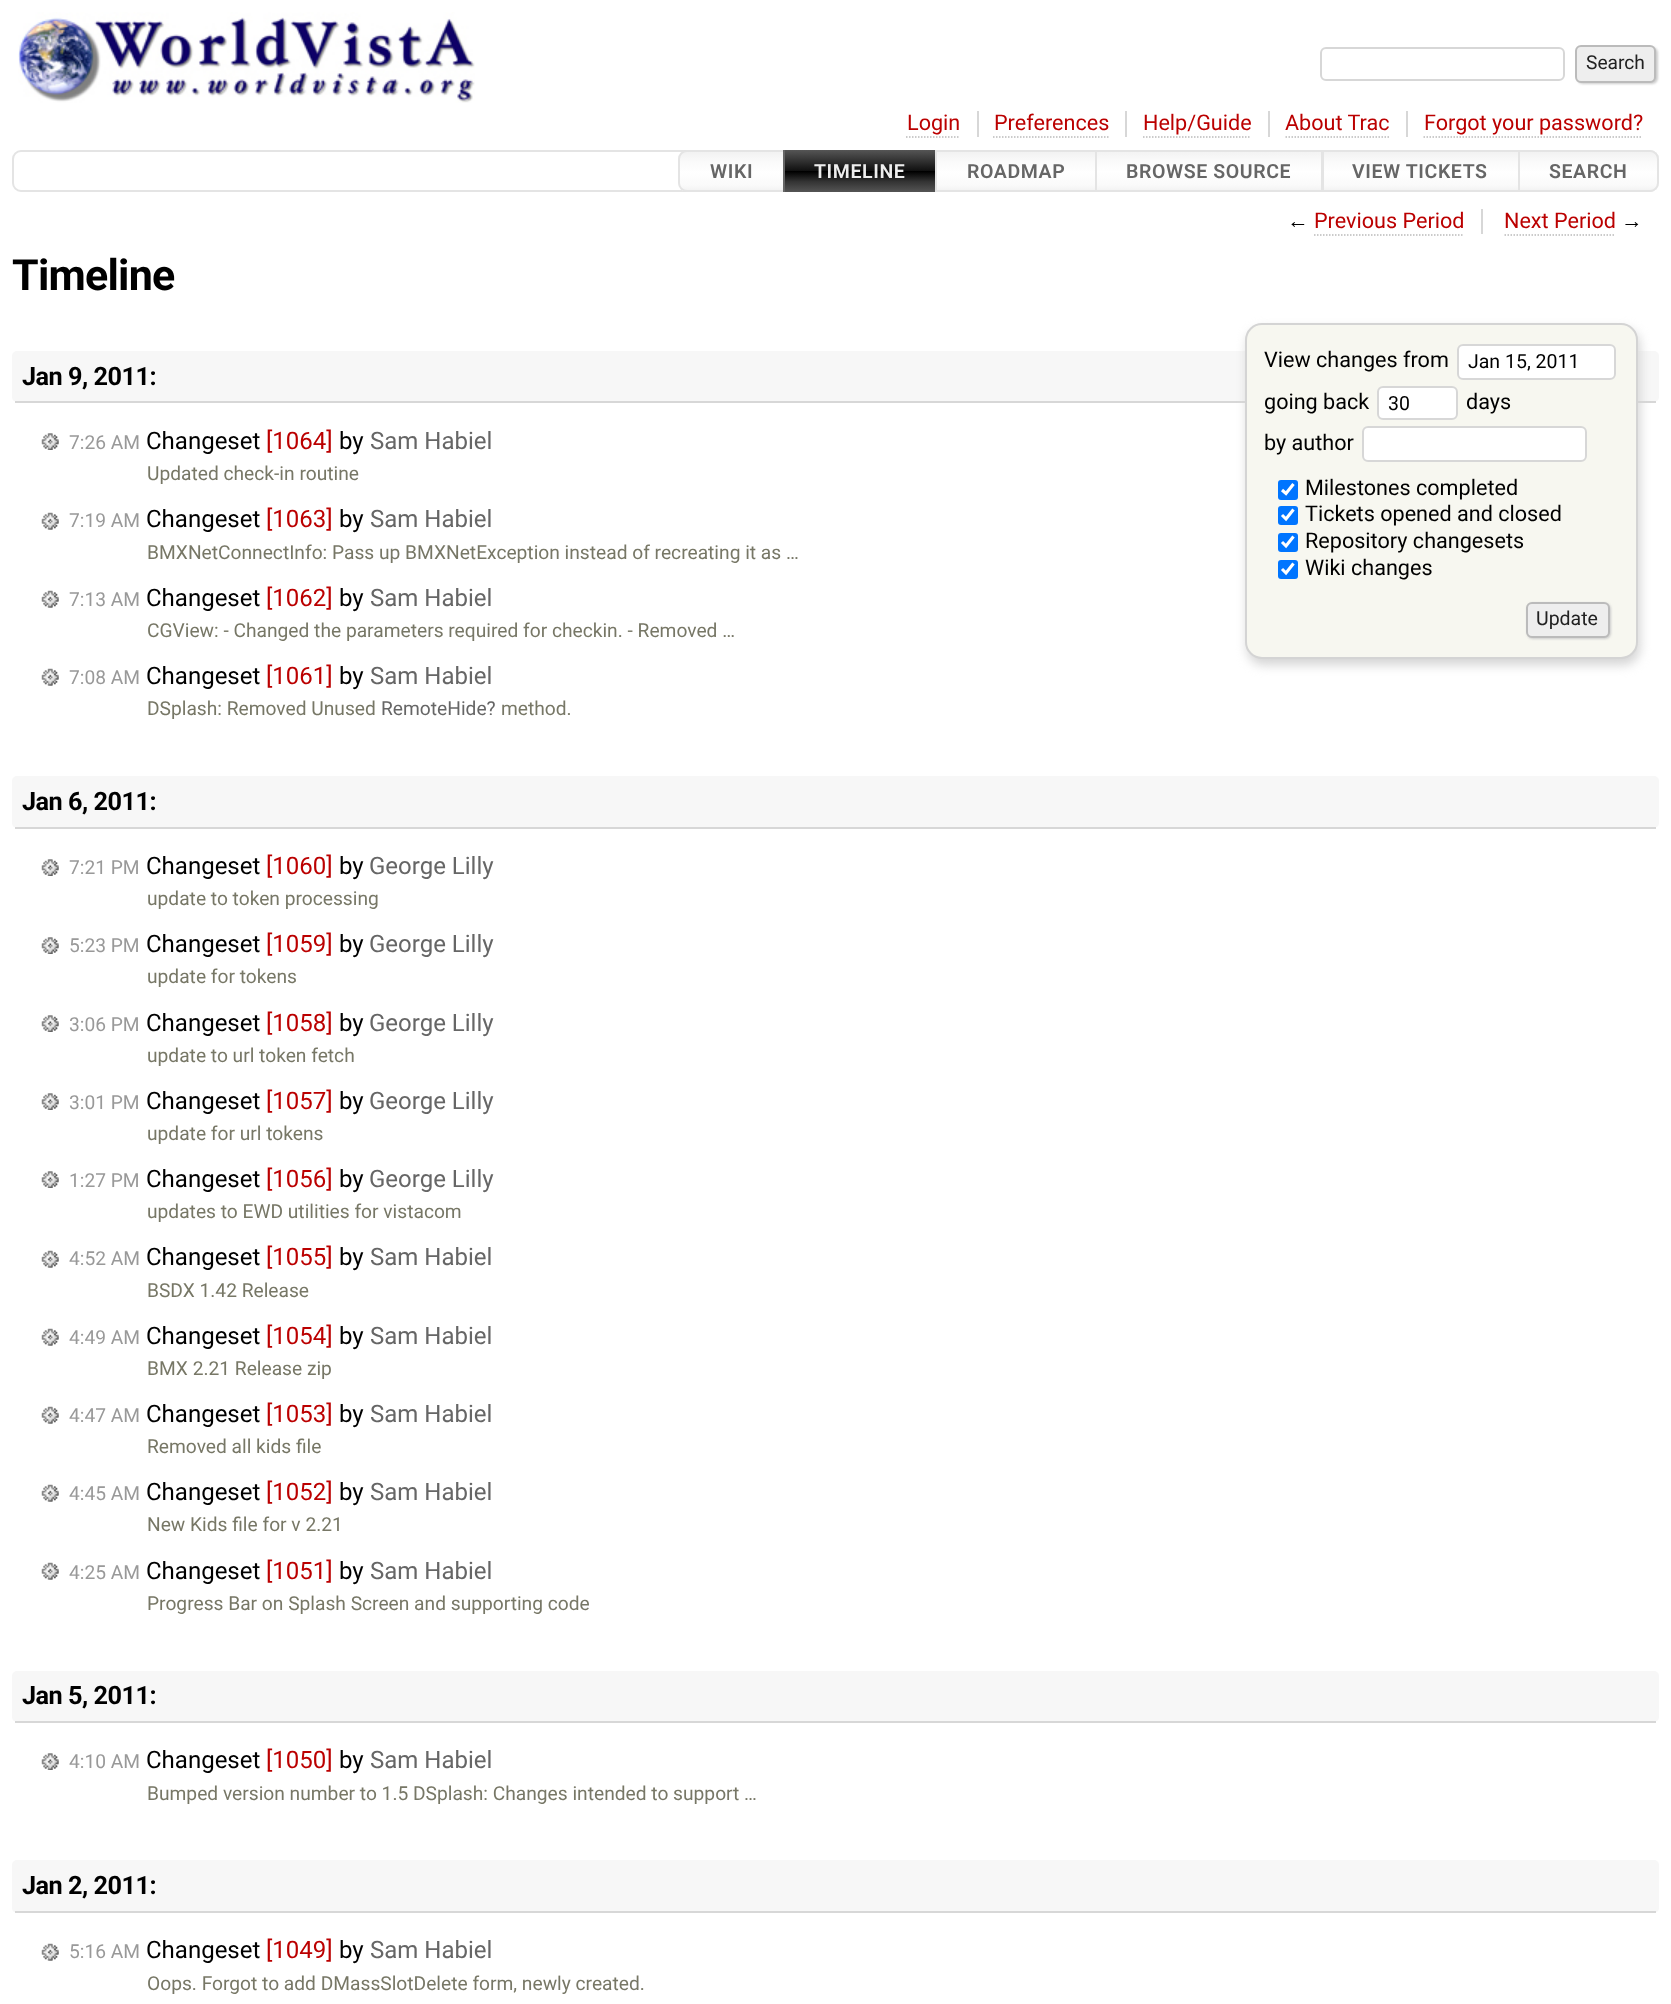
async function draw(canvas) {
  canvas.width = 1671;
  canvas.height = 2004;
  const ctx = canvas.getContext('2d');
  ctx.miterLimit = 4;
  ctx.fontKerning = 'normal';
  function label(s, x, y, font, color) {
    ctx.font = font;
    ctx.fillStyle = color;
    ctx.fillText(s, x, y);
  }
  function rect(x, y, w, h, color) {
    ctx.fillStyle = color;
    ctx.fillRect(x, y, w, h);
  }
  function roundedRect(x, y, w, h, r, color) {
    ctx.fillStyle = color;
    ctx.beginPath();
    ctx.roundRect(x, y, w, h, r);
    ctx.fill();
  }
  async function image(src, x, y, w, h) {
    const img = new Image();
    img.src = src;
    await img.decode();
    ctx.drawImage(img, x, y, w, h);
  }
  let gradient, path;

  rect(0, 0, 1671, 2004, '#fff');
  await image('assets/img1.png', 18, 12, 457, 91);
  ctx.beginPath();
  ctx.roundRect(1321, 48, 243, 32, 5);
  ctx.strokeStyle = '#d7d7d7';
  ctx.lineWidth = 2;
  ctx.stroke();
  ctx.fillStyle = '#ccc';
  ctx.filter = 'blur(1px)';
  ctx.beginPath();
  ctx.roundRect(1577, 47, 81, 37, 6);
  ctx.fill();
  ctx.filter = 'none';
  ctx.fillStyle = '#eee';
  ctx.beginPath();
  ctx.roundRect(1576, 46, 79, 36, 5);
  ctx.fill();
  ctx.strokeStyle = '#bbb';
  ctx.stroke();
  label('Search', 1586, 69, '19.2px Roboto', '#222');
  rect(977, 111, 2, 26, '#d7d7d7');
  label('Login', 907, 130, '21.6px Roboto', '#b00');
  path = new Path2D('M906 137H960');
  ctx.lineWidth = 1.5;
  ctx.setLineDash([1.5, 1.5]);
  ctx.stroke(path);
  rect(1125, 111, 2, 26, '#d7d7d7');
  label('Preferences', 994, 130, '21.6px Roboto', '#b00');
  path = new Path2D('M993 137H1108.5');
  ctx.stroke(path);
  rect(1268, 111, 2, 26, '#d7d7d7');
  label('Help/Guide', 1143, 130, '21.6px Roboto', '#b00');
  path = new Path2D('M1143 137H1251');
  ctx.stroke(path);
  rect(1406, 111, 2, 26, '#d7d7d7');
  label('About Trac', 1285, 130, '21.6px Roboto', '#b00');
  path = new Path2D('M1285.5 137H1390.5');
  ctx.stroke(path);
  label('Forgot your password?', 1424, 130, '21.6px Roboto', '#b00');
  path = new Path2D('M1423.5 137H1642.5');
  ctx.stroke(path);
  ctx.beginPath();
  ctx.roundRect(13, 151, 1645, 40, 8);
  ctx.strokeStyle = '#e4e4e4';
  ctx.lineWidth = 2;
  ctx.setLineDash([]);
  ctx.stroke();
  ctx.save();
  ctx.beginPath();
  ctx.roundRect(678, 150, 107, 42, [9, 0, 0, 9]);
  ctx.clip();
  gradient = ctx.createLinearGradient(731, 152, 731, 191);
  gradient.addColorStop(0, '#f2f2f2');
  gradient.addColorStop(0.25, '#fafafa');
  gradient.addColorStop(0.49, '#fefefe');
  gradient.addColorStop(0.51, '#fff');
  gradient.addColorStop(0.85, '#fafafa');
  gradient.addColorStop(1, '#f2f2f2');
  ctx.fillStyle = gradient;
  ctx.fillRect(678, 152, 105, 39);
  ctx.restore();
  ctx.beginPath();
  ctx.roundRect(679, 151, 105, 40, [8, 0, 0, 8]);
  ctx.stroke();
  ctx.letterSpacing = '0.6px';
  label('WIKI', 710, 178, '600 19.5px Roboto', '#666');
  ctx.strokeStyle = '#666';
  ctx.strokeRect(784, 151, 153, 40);
  gradient = ctx.createLinearGradient(860, 150, 860, 192);
  gradient.addColorStop(0, '#555');
  gradient.addColorStop(0.25, '#333');
  gradient.addColorStop(0.49, '#111');
  gradient.addColorStop(0.51, '#000');
  gradient.addColorStop(0.75, '#333');
  gradient.addColorStop(1, '#555');
  ctx.fillStyle = gradient;
  ctx.fillRect(785, 150, 150, 42);
  label('TIMELINE', 814, 178, '600 19.5px Roboto', '#eee');
  gradient = ctx.createLinearGradient(1016, 152, 1016, 191);
  gradient.addColorStop(0, '#f2f2f2');
  gradient.addColorStop(0.25, '#fafafa');
  gradient.addColorStop(0.49, '#fefefe');
  gradient.addColorStop(0.51, '#fff');
  gradient.addColorStop(0.85, '#fafafa');
  gradient.addColorStop(1, '#f2f2f2');
  ctx.fillStyle = gradient;
  ctx.fillRect(937, 152, 158, 38);
  ctx.strokeStyle = '#e4e4e4';
  ctx.strokeRect(936, 151, 160, 40);
  label('ROADMAP', 967, 178, '600 19.5px Roboto', '#666');
  gradient = ctx.createLinearGradient(1209, 151, 1209, 191);
  gradient.addColorStop(0, '#f2f2f2');
  gradient.addColorStop(0.25, '#fafafa');
  gradient.addColorStop(0.49, '#fefefe');
  gradient.addColorStop(0.51, '#fff');
  gradient.addColorStop(0.85, '#fafafa');
  gradient.addColorStop(1, '#f2f2f2');
  ctx.fillStyle = gradient;
  ctx.fillRect(1097, 152, 224, 38);
  ctx.strokeRect(1096, 151, 226, 40);
  label('BROWSE SOURCE', 1126, 178, '600 19.5px Roboto', '#666');
  gradient = ctx.createLinearGradient(1421, 152, 1421, 191);
  gradient.addColorStop(0, '#f2f2f2');
  gradient.addColorStop(0.25, '#fafafa');
  gradient.addColorStop(0.49, '#fefefe');
  gradient.addColorStop(0.51, '#fff');
  gradient.addColorStop(0.85, '#fafafa');
  gradient.addColorStop(1, '#f2f2f2');
  ctx.fillStyle = gradient;
  ctx.fillRect(1324, 152, 194, 38);
  ctx.strokeRect(1323, 151, 196, 40);
  label('VIEW TICKETS', 1352, 178, '600 19.5px Roboto', '#666');
  ctx.save();
  ctx.beginPath();
  ctx.roundRect(1518, 150, 141, 42, [0, 9, 9, 0]);
  ctx.clip();
  gradient = ctx.createLinearGradient(1589, 152, 1589, 191);
  gradient.addColorStop(0, '#f2f2f2');
  gradient.addColorStop(0.25, '#fafafa');
  gradient.addColorStop(0.49, '#fefefe');
  gradient.addColorStop(0.51, '#fff');
  gradient.addColorStop(0.85, '#fafafa');
  gradient.addColorStop(1, '#f2f2f2');
  ctx.fillStyle = gradient;
  ctx.fillRect(1520, 152, 139, 39);
  ctx.restore();
  ctx.beginPath();
  ctx.roundRect(1519, 151, 139, 40, [0, 8, 8, 0]);
  ctx.stroke();
  label('SEARCH', 1549, 178, '600 19.5px Roboto', '#666');
  rect(1481, 209, 2, 25, '#d7d7d7');
  ctx.letterSpacing = '0px';
  label('←', 1287, 228, '21.6px Liberation Sans', '#000');
  label('Previous Period', 1314, 228, '21.6px Roboto', '#b00');
  path = new Path2D('M1314 235H1464');
  ctx.strokeStyle = '#bbb';
  ctx.lineWidth = 1.5;
  ctx.setLineDash([1.5, 1.5]);
  ctx.stroke(path);
  label('Next Period', 1504, 228, '21.6px Roboto', '#b00');
  path = new Path2D('M1504.5 235H1615.5');
  ctx.stroke(path);
  label('→', 1621, 228, '21.6px Liberation Sans', '#000');
  ctx.letterSpacing = '-0.75px';
  label('Timeline', 12, 290, 'bold 43px Roboto', '#000');
  roundedRect(12, 351, 1647, 51, 5, '#f7f7f7');
  rect(15, 401, 1641, 2, '#d7d7d7');
  ctx.letterSpacing = '-0.5px';
  label('Jan 9, 2011:', 22, 385, 'bold 25.25px Roboto', '#000');
  ctx.fillStyle = '#d4d4d4';
  ctx.filter = 'blur(5.5px)';
  ctx.beginPath();
  ctx.roundRect(1247, 329, 393, 336, 17);
  ctx.fill();
  ctx.filter = 'none';
  ctx.fillStyle = '#f7f7f0';
  ctx.beginPath();
  ctx.roundRect(1246, 324, 391, 334, 16);
  ctx.fill();
  ctx.strokeStyle = '#d4d4d4';
  ctx.lineWidth = 2;
  ctx.setLineDash([]);
  ctx.stroke();
  ctx.letterSpacing = '0px';
  label('View changes from', 1264, 367, '21.6px Roboto', '#000');
  ctx.fillStyle = '#fff';
  ctx.beginPath();
  ctx.roundRect(1458, 345, 157, 34, 5);
  ctx.fill();
  ctx.strokeStyle = '#d7d7d7';
  ctx.stroke();
  label('Jan 15, 2011', 1468, 368, '19.5px Roboto', '#000');
  label('going back', 1264, 409, '21.6px Roboto', '#000');
  ctx.fillStyle = '#fff';
  ctx.beginPath();
  ctx.roundRect(1378, 387, 79, 32, 5);
  ctx.fill();
  ctx.stroke();
  label('30', 1388, 410, '19.5px Roboto', '#000');
  label('days', 1466, 409, '21.6px Roboto', '#000');
  label('by author', 1264, 450, '21.6px Roboto', '#000');
  ctx.fillStyle = '#fff';
  ctx.beginPath();
  ctx.roundRect(1363, 427, 223, 34, 5);
  ctx.fill();
  ctx.stroke();
  roundedRect(1278, 480, 20, 20, 3, '#0075ff');
  path = new Path2D('M1282 490L1286 493.5L1293.5 484');
  ctx.strokeStyle = '#fff';
  ctx.lineWidth = 3.1;
  ctx.stroke(path);
  label('Milestones completed', 1305, 495, '21.6px Roboto', '#000');
  roundedRect(1278, 506, 20, 19, 3, '#0075ff');
  path = new Path2D('M1282 515L1286 519L1293.5 509.5');
  ctx.stroke(path);
  label('Tickets opened and closed', 1305, 521, '21.6px Roboto', '#000');
  roundedRect(1278, 533, 20, 19, 3, '#0075ff');
  path = new Path2D('M1282 542L1286 546L1293.5 536.5');
  ctx.stroke(path);
  label('Repository changesets', 1305, 548, '21.6px Roboto', '#000');
  roundedRect(1278, 560, 20, 19, 3, '#0075ff');
  path = new Path2D('M1282 569L1286 573L1293.5 563.5');
  ctx.stroke(path);
  label('Wiki changes', 1305, 575, '21.6px Roboto', '#000');
  ctx.fillStyle = '#ccc';
  ctx.filter = 'blur(1px)';
  ctx.beginPath();
  ctx.roundRect(1527, 603, 84, 36, 6);
  ctx.fill();
  ctx.filter = 'none';
  ctx.fillStyle = '#eee';
  ctx.beginPath();
  ctx.roundRect(1527, 603, 82, 34, 5);
  ctx.fill();
  ctx.strokeStyle = '#bbb';
  ctx.lineWidth = 2;
  ctx.stroke();
  label('Update', 1536, 625, '19.5px Roboto', '#222');
  await image('assets/img2.png', 41, 433, 18, 17);
  await image('assets/img3.png', 41, 433, 18, 17);
  label('7:26 AM', 69, 449, '19.2px Roboto', '#999');
  label('Changeset', 146, 449, '24px Roboto', '#000');
  label('[1064]', 266, 449, '24px Roboto', '#b00');
  label('by', 339, 449, '24px Roboto', '#000');
  label('Sam Habiel', 370, 449, '24px Roboto', '#666');
  label('Updated check-in routine', 147, 480, '19.2px Roboto', '#776');
  await image('assets/img4.png', 41, 512, 18, 18);
  await image('assets/img5.png', 41, 512, 18, 18);
  label('7:19 AM', 69, 527, '19.2px Roboto', '#999');
  label('Changeset', 146, 527, '24px Roboto', '#000');
  label('[1063]', 266, 527, '24px Roboto', '#b00');
  label('by', 339, 527, '24px Roboto', '#000');
  label('Sam Habiel', 370, 527, '24px Roboto', '#666');
  label('BMXNetConnectInfo: Pass up BMXNetException instead of recreating it as …', 147, 559, '19.2px Roboto', '#776');
  await image('assets/img4.png', 41, 590, 18, 18);
  await image('assets/img5.png', 41, 590, 18, 18);
  label('7:13 AM', 69, 606, '19.2px Roboto', '#999');
  label('Changeset', 146, 606, '24px Roboto', '#000');
  label('[1062]', 266, 606, '24px Roboto', '#b00');
  label('by', 339, 606, '24px Roboto', '#000');
  label('Sam Habiel', 370, 606, '24px Roboto', '#666');
  label('CGView: - Changed the parameters required for checkin. - Removed …', 147, 637, '19.2px Roboto', '#776');
  await image('assets/img4.png', 41, 668, 18, 18);
  await image('assets/img5.png', 41, 668, 18, 18);
  label('7:08 AM', 69, 684, '19.2px Roboto', '#999');
  label('Changeset', 146, 684, '24px Roboto', '#000');
  label('[1061]', 266, 684, '24px Roboto', '#b00');
  label('by', 339, 684, '24px Roboto', '#000');
  label('Sam Habiel', 370, 684, '24px Roboto', '#666');
  label('DSplash: Removed Unused', 147, 715, '19.2px Roboto', '#776');
  label('RemoteHide?', 381, 715, '19.2px Roboto', '#666');
  label('method.', 501, 715, '19.2px Roboto', '#776');
  roundedRect(12, 776, 1647, 52, 5, '#f7f7f7');
  rect(15, 827, 1641, 2, '#d7d7d7');
  ctx.letterSpacing = '-0.5px';
  label('Jan 6, 2011:', 22, 810, 'bold 25.25px Roboto', '#000');
  await image('assets/img2.png', 41, 859, 18, 17);
  await image('assets/img3.png', 41, 859, 18, 17);
  ctx.letterSpacing = '0px';
  label('7:21 PM', 69, 874, '19.2px Roboto', '#999');
  label('Changeset', 146, 874, '24px Roboto', '#000');
  label('[1060]', 266, 874, '24px Roboto', '#b00');
  label('by', 339, 874, '24px Roboto', '#000');
  label('George Lilly', 369, 874, '24px Roboto', '#666');
  label('update to token processing', 147, 905, '19.2px Roboto', '#776');
  await image('assets/img2.png', 41, 937, 18, 17);
  await image('assets/img3.png', 41, 937, 18, 17);
  label('5:23 PM', 69, 952, '19.2px Roboto', '#999');
  label('Changeset', 146, 952, '24px Roboto', '#000');
  label('[1059]', 266, 952, '24px Roboto', '#b00');
  label('by', 339, 952, '24px Roboto', '#000');
  label('George Lilly', 369, 952, '24px Roboto', '#666');
  label('update for tokens', 147, 983, '19.2px Roboto', '#776');
  await image('assets/img2.png', 41, 1015, 18, 17);
  await image('assets/img3.png', 41, 1015, 18, 17);
  label('3:06 PM', 69, 1031, '19.2px Roboto', '#999');
  label('Changeset', 146, 1031, '24px Roboto', '#000');
  label('[1058]', 266, 1031, '24px Roboto', '#b00');
  label('by', 339, 1031, '24px Roboto', '#000');
  label('George Lilly', 369, 1031, '24px Roboto', '#666');
  label('update to url token fetch', 147, 1062, '19.2px Roboto', '#776');
  await image('assets/img2.png', 41, 1093, 18, 17);
  await image('assets/img3.png', 41, 1093, 18, 17);
  label('3:01 PM', 69, 1109, '19.2px Roboto', '#999');
  label('Changeset', 146, 1109, '24px Roboto', '#000');
  label('[1057]', 266, 1109, '24px Roboto', '#b00');
  label('by', 339, 1109, '24px Roboto', '#000');
  label('George Lilly', 369, 1109, '24px Roboto', '#666');
  label('update for url tokens', 147, 1140, '19.2px Roboto', '#776');
  await image('assets/img2.png', 41, 1171, 18, 17);
  await image('assets/img3.png', 41, 1171, 18, 17);
  label('1:27 PM', 69, 1187, '19.2px Roboto', '#999');
  label('Changeset', 146, 1187, '24px Roboto', '#000');
  label('[1056]', 266, 1187, '24px Roboto', '#b00');
  label('by', 339, 1187, '24px Roboto', '#000');
  label('George Lilly', 369, 1187, '24px Roboto', '#666');
  label('updates to EWD utilities for vistacom', 147, 1218, '19.2px Roboto', '#776');
  await image('assets/img4.png', 41, 1250, 18, 18);
  await image('assets/img5.png', 41, 1250, 18, 18);
  label('4:52 AM', 69, 1265, '19.2px Roboto', '#999');
  label('Changeset', 146, 1265, '24px Roboto', '#000');
  label('[1055]', 266, 1265, '24px Roboto', '#b00');
  label('by', 339, 1265, '24px Roboto', '#000');
  label('Sam Habiel', 370, 1265, '24px Roboto', '#666');
  label('BSDX 1.42 Release', 147, 1297, '19.2px Roboto', '#776');
  await image('assets/img4.png', 41, 1328, 18, 18);
  await image('assets/img5.png', 41, 1328, 18, 18);
  label('4:49 AM', 69, 1344, '19.2px Roboto', '#999');
  label('Changeset', 146, 1344, '24px Roboto', '#000');
  label('[1054]', 266, 1344, '24px Roboto', '#b00');
  label('by', 339, 1344, '24px Roboto', '#000');
  label('Sam Habiel', 370, 1344, '24px Roboto', '#666');
  label('BMX 2.21 Release zip', 147, 1375, '19.2px Roboto', '#776');
  await image('assets/img4.png', 41, 1406, 18, 18);
  await image('assets/img5.png', 41, 1406, 18, 18);
  label('4:47 AM', 69, 1422, '19.2px Roboto', '#999');
  label('Changeset', 146, 1422, '24px Roboto', '#000');
  label('[1053]', 266, 1422, '24px Roboto', '#b00');
  label('by', 339, 1422, '24px Roboto', '#000');
  label('Sam Habiel', 370, 1422, '24px Roboto', '#666');
  label('Removed all kids file', 147, 1453, '19.2px Roboto', '#776');
  await image('assets/img4.png', 41, 1484, 18, 18);
  await image('assets/img5.png', 41, 1484, 18, 18);
  label('4:45 AM', 69, 1500, '19.2px Roboto', '#999');
  label('Changeset', 146, 1500, '24px Roboto', '#000');
  label('[1052]', 266, 1500, '24px Roboto', '#b00');
  label('by', 339, 1500, '24px Roboto', '#000');
  label('Sam Habiel', 370, 1500, '24px Roboto', '#666');
  label('New Kids file for v 2.21', 147, 1531, '19.2px Roboto', '#776');
  await image('assets/img4.png', 41, 1562, 18, 18);
  await image('assets/img5.png', 41, 1562, 18, 18);
  label('4:25 AM', 69, 1579, '19.2px Roboto', '#999');
  label('Changeset', 146, 1579, '24px Roboto', '#000');
  label('[1051]', 266, 1579, '24px Roboto', '#b00');
  label('by', 339, 1579, '24px Roboto', '#000');
  label('Sam Habiel', 370, 1579, '24px Roboto', '#666');
  label('Progress Bar on Splash Screen and supporting code', 147, 1610, '19.2px Roboto', '#776');
  roundedRect(12, 1671, 1647, 51, 5, '#f7f7f7');
  rect(15, 1721, 1641, 2, '#d7d7d7');
  ctx.letterSpacing = '-0.5px';
  label('Jan 5, 2011:', 22, 1704, 'bold 25.25px Roboto', '#000');
  await image('assets/img2.png', 41, 1753, 18, 17);
  await image('assets/img3.png', 41, 1753, 18, 17);
  ctx.letterSpacing = '0px';
  label('4:10 AM', 69, 1768, '19.2px Roboto', '#999');
  label('Changeset', 146, 1768, '24px Roboto', '#000');
  label('[1050]', 266, 1768, '24px Roboto', '#b00');
  label('by', 339, 1768, '24px Roboto', '#000');
  label('Sam Habiel', 370, 1768, '24px Roboto', '#666');
  label('Bumped version number to 1.5 DSplash: Changes intended to support …', 147, 1800, '19.2px Roboto', '#776');
  roundedRect(12, 1860, 1647, 53, 5, '#f7f7f7');
  rect(15, 1911, 1641, 2, '#d7d7d7');
  ctx.letterSpacing = '-0.5px';
  label('Jan 2, 2011:', 22, 1894, 'bold 25.25px Roboto', '#000');
  await image('assets/img4.png', 41, 1943, 18, 18);
  await image('assets/img5.png', 41, 1943, 18, 18);
  ctx.letterSpacing = '0px';
  label('5:16 AM', 69, 1958, '19.2px Roboto', '#999');
  label('Changeset', 146, 1958, '24px Roboto', '#000');
  label('[1049]', 266, 1958, '24px Roboto', '#b00');
  label('by', 339, 1958, '24px Roboto', '#000');
  label('Sam Habiel', 370, 1958, '24px Roboto', '#666');
  label('Oops. Forgot to add DMassSlotDelete form, newly created.', 147, 1990, '19.2px Roboto', '#776');
}

draw(document.querySelector('canvas'));
